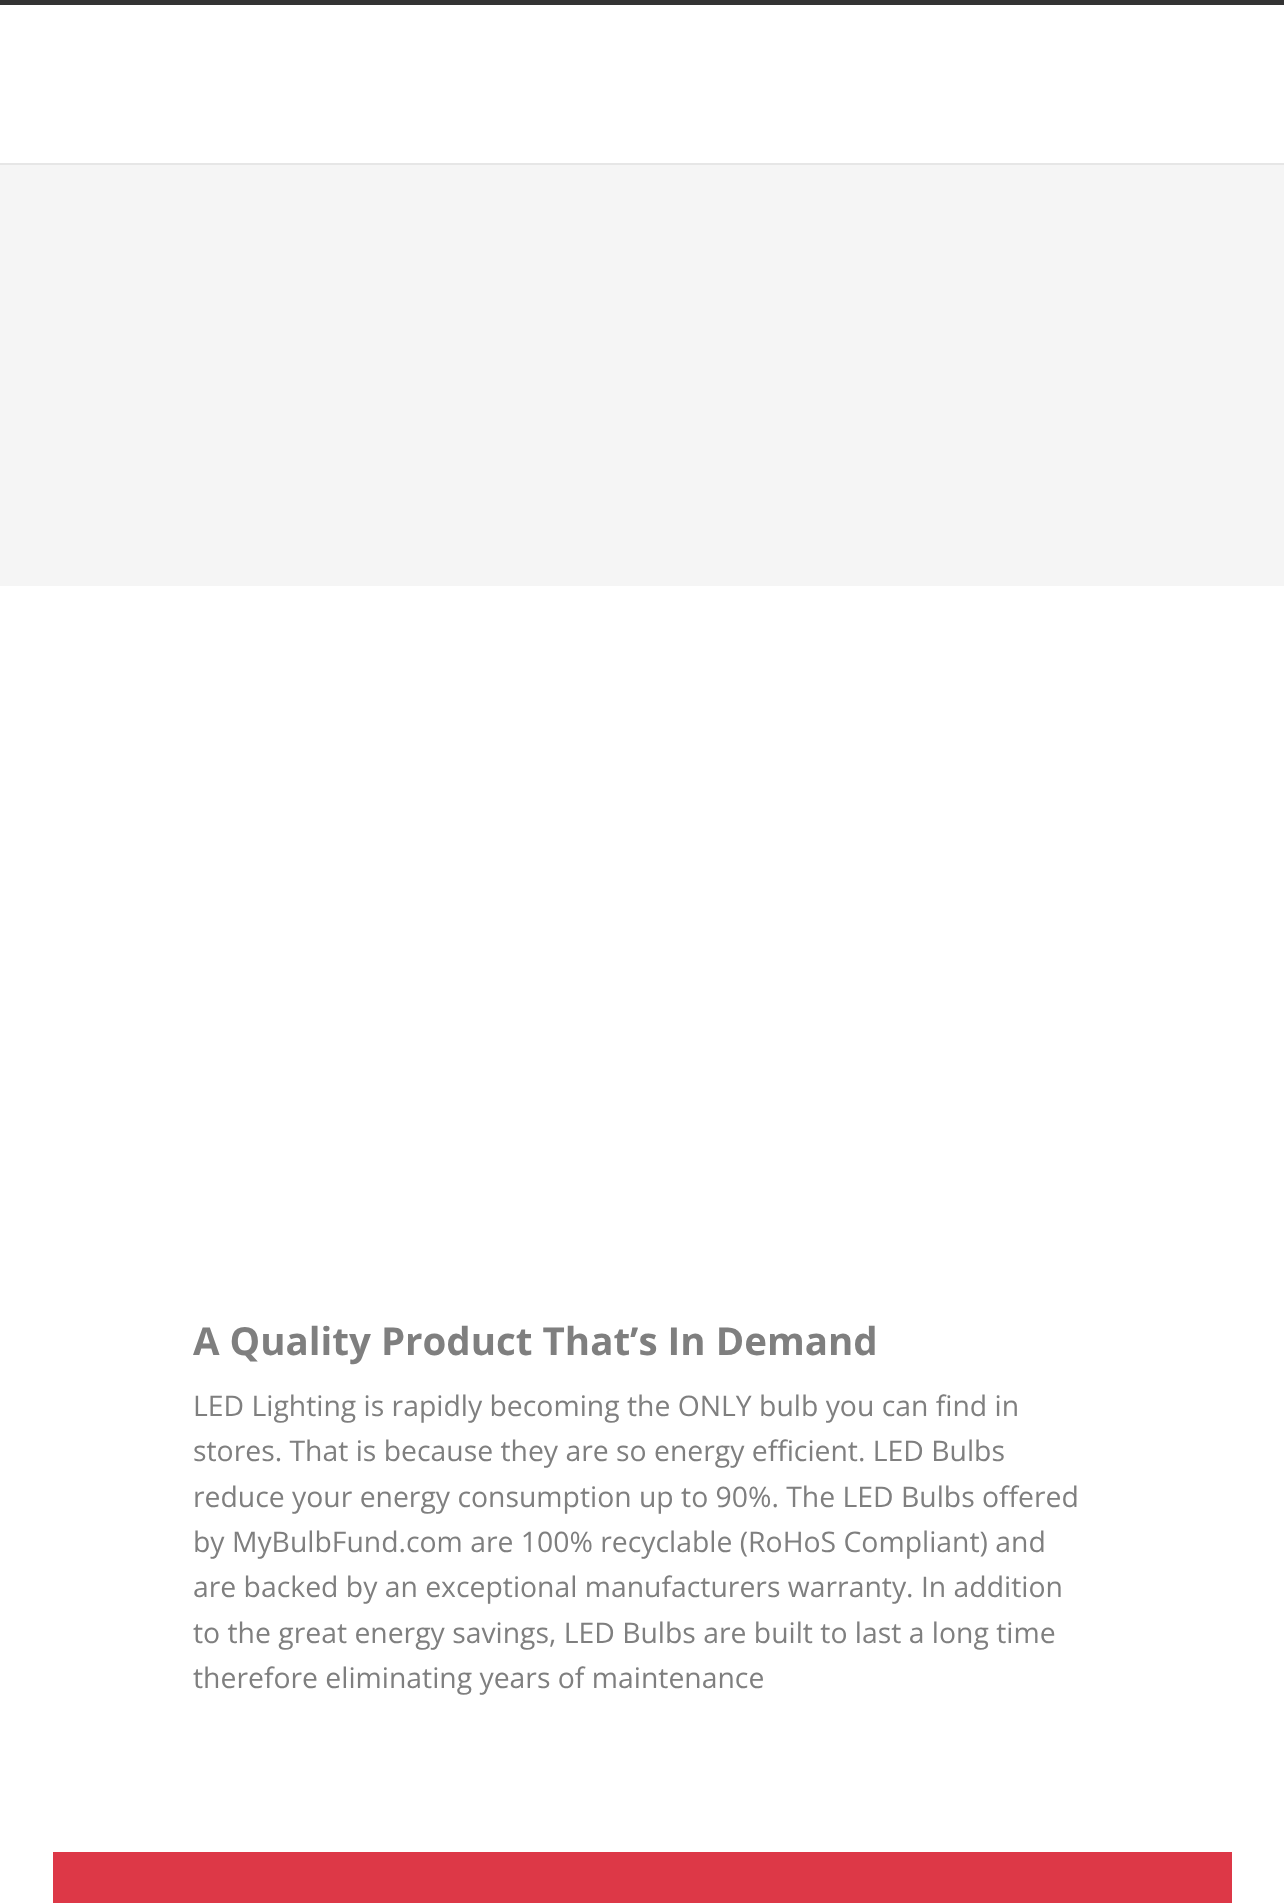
async function draw(canvas) {
  canvas.width = 1284;
  canvas.height = 1903;
  const ctx = canvas.getContext('2d');
  ctx.miterLimit = 4;
  ctx.fontKerning = 'normal';
  function label(s, x, y, font, color) {
    ctx.font = font;
    ctx.fillStyle = color;
    ctx.fillText(s, x, y);
  }
  function rect(x, y, w, h, color) {
    ctx.fillStyle = color;
    ctx.fillRect(x, y, w, h);
  }
  let path;

  rect(0, 0, 1284, 1903, '#fff');
  ctx.fillStyle = '#e6e6e6';
  path = new Path2D('M0 163V165H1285V-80H1284V163Z');
  ctx.fill(path);
  rect(0, 0, 1284, 5, '#333');
  rect(0, 165, 1284, 421, '#f5f5f5');
  label('A Quality Product That’s In Demand', 193, 1355, 'bold 38.5px Open Sans', '#7f7f7f');
  label('LED Lighting is rapidly becoming the ONLY bulb you can find in', 193, 1416, '28.35px Open Sans', '#7f7f7f');
  label('stores. That is because they are so energy efficient. LED Bulbs', 193, 1461, '28.35px Open Sans', '#7f7f7f');
  label('reduce your energy consumption up to 90%. The LED Bulbs offered', 193, 1507, '28.35px Open Sans', '#7f7f7f');
  label('by MyBulbFund.com are 100% recyclable (RoHoS Compliant) and', 193, 1552, '28.35px Open Sans', '#7f7f7f');
  label('are backed by an exceptional manufacturers warranty. In addition', 193, 1597, '28.35px Open Sans', '#7f7f7f');
  label('to the great energy savings, LED Bulbs are built to last a long time', 193, 1643, '28.35px Open Sans', '#7f7f7f');
  label('therefore eliminating years of maintenance', 193, 1688, '28.35px Open Sans', '#7f7f7f');
  rect(53, 1852, 1179, 51, '#dd3847');
}

draw(document.querySelector('canvas'));
